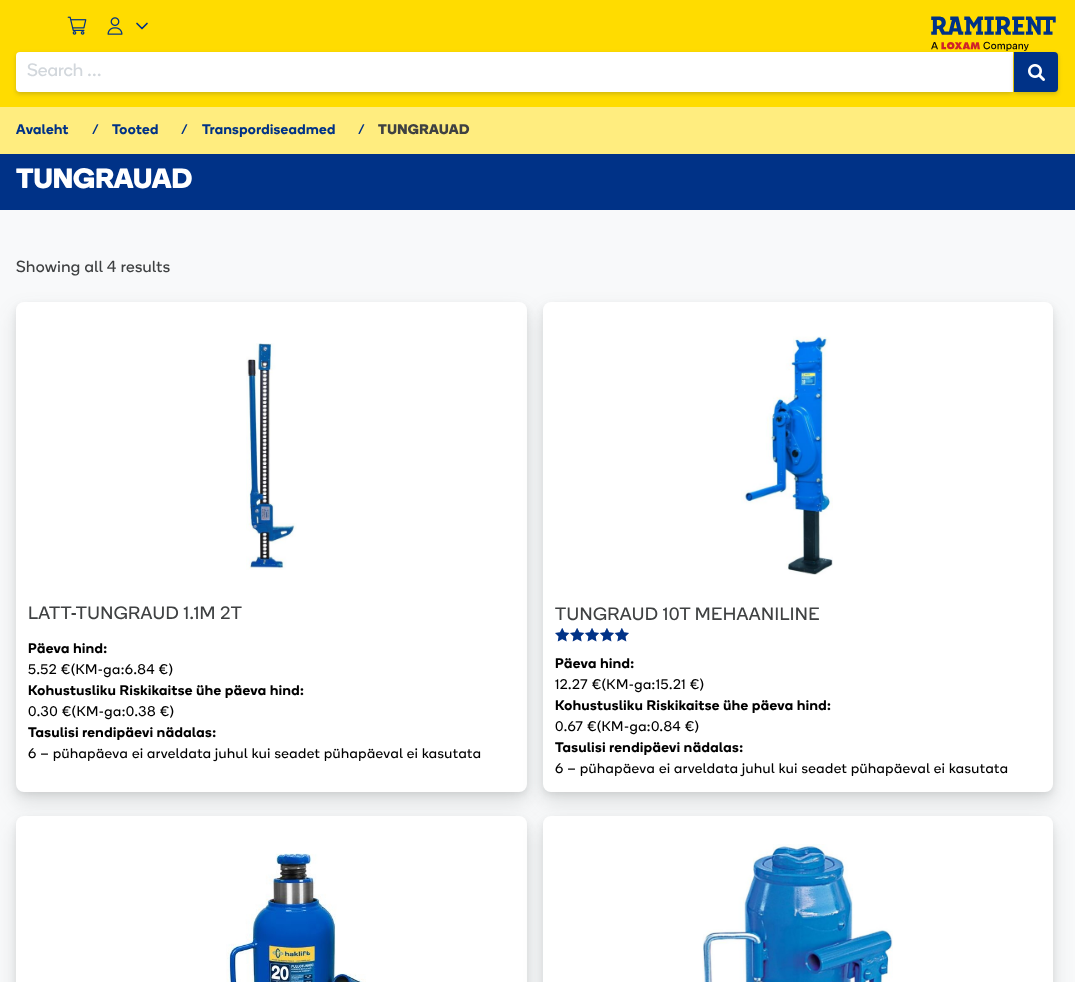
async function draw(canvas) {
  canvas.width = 1075;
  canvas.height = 982;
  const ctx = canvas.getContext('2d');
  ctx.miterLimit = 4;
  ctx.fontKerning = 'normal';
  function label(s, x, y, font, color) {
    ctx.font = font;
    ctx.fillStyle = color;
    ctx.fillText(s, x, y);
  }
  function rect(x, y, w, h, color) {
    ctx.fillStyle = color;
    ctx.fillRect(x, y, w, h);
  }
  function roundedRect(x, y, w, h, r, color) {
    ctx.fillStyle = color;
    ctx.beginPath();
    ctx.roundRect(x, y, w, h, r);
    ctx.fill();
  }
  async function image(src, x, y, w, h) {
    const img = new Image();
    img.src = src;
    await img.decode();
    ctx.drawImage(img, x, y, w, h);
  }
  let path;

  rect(0, 0, 1075, 982, '#f8f9fa');
  rect(0, 0, 1075, 107, '#ffdc00');
  await image('assets/img1.png', 67, 16, 20, 19);
  await image('assets/img2.png', 107, 17, 16, 18);
  path = new Path2D('M137 23.5L142 28.5L147 23.5');
  ctx.strokeStyle = '#003287';
  ctx.lineWidth = 1.7;
  ctx.lineCap = 'round';
  ctx.lineJoin = 'round';
  ctx.stroke(path);
  await image('assets/img3.png', 931, 16, 125, 35);
  ctx.fillStyle = '#3f41423d';
  ctx.filter = 'blur(2px)';
  ctx.beginPath();
  ctx.roundRect(16, 54, 997, 40, 4);
  ctx.fill();
  ctx.filter = 'none';
  ctx.fillStyle = '#fff';
  ctx.beginPath();
  ctx.roundRect(16, 52, 997, 40, [4, 0, 0, 4]);
  ctx.fill();
  label('Search …', 27, 76, '18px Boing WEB', '#d2d7dc');
  ctx.fillStyle = '#3f41423d';
  ctx.filter = 'blur(2px)';
  ctx.beginPath();
  ctx.roundRect(1014, 54, 44, 40, 4);
  ctx.fill();
  ctx.filter = 'none';
  ctx.fillStyle = '#003287';
  ctx.beginPath();
  ctx.roundRect(1014, 52, 44, 40, [0, 4, 4, 0]);
  ctx.fill();
  await image('assets/img4.png', 1028, 64, 17, 17);
  rect(0, 107, 1075, 47, '#ffed7f');
  ctx.letterSpacing = '0.4px';
  label('Avaleht', 16, 134, '600 14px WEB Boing', '#003287');
  label('/', 92, 134, '600 14px WEB Boing', '#003287');
  label('Tooted', 112, 134, '600 14px WEB Boing', '#003287');
  label('/', 181, 134, '600 14px WEB Boing', '#003287');
  label('Transpordiseadmed', 202, 134, '600 14px WEB Boing', '#003287');
  label('/', 358, 134, '600 14px WEB Boing', '#003287');
  label('TUNGRAUAD', 378, 134, 'bold 14px Boing WEB', '#3f4142');
  rect(0, 154, 1075, 56, '#003287');
  ctx.letterSpacing = '0px';
  label('TUNGRAUAD', 16, 188, 'bold 28px Boing WEB', '#fff');
  ctx.letterSpacing = '0.4px';
  label('Showing all 4 results', 16, 272, '16px Boing WEB', '#3f4142');
  ctx.fillStyle = '#3f41421a';
  ctx.filter = 'blur(3px)';
  ctx.beginPath();
  ctx.roundRect(16, 305, 511, 490, 8);
  ctx.fill();
  ctx.filter = 'none';
  ctx.fillStyle = '#3f414226';
  ctx.filter = 'blur(10px)';
  ctx.beginPath();
  ctx.roundRect(16, 312, 511, 490, 8);
  ctx.fill();
  ctx.filter = 'none';
  roundedRect(16, 302, 511, 490, 8, '#fff');
  await image('assets/img5.png', 246, 343, 51, 227);
  label('LATT-TUNGRAUD 1.1M 2T', 28, 619, '18px Boing WEB', '#3f4142');
  ctx.letterSpacing = '0.5px';
  label('Päeva hind:', 28, 653, '600 14px WEB Boing', '#000');
  label('5.52 €(KM-ga:6.84 €)', 28, 674, '14px Boing WEB', '#000');
  label('Kohustusliku Riskikaitse ühe päeva hind:', 28, 695, '600 14px WEB Boing', '#000');
  label('0.30 €(KM-ga:0.38 €)', 28, 716, '14px Boing WEB', '#000');
  label('Tasulisi rendipäevi nädalas:', 28, 737, '600 14px WEB Boing', '#000');
  label('6 – pühapäeva ei arveldata juhul kui seadet pühapäeval ei kasutata', 28, 758, '14px Boing WEB', '#000');
  ctx.fillStyle = '#3f41421a';
  ctx.filter = 'blur(3px)';
  ctx.beginPath();
  ctx.roundRect(543, 305, 510, 490, 8);
  ctx.fill();
  ctx.filter = 'none';
  ctx.fillStyle = '#3f414226';
  ctx.filter = 'blur(10px)';
  ctx.beginPath();
  ctx.roundRect(543, 312, 510, 490, 8);
  ctx.fill();
  ctx.filter = 'none';
  roundedRect(543, 302, 510, 490, 8, '#fff');
  await image('assets/img6.png', 741, 336, 92, 239);
  ctx.letterSpacing = '0.4px';
  label('TUNGRAUD 10T MEHAANILINE', 555, 620, '18px Boing WEB', '#3f4142');
  await image('assets/img7.png', 555, 628, 74, 14);
  await image('assets/img8.png', 555, 628, 74, 14);
  ctx.letterSpacing = '0.5px';
  label('Päeva hind:', 555, 668, '600 14px WEB Boing', '#000');
  label('12.27 €(KM-ga:15.21 €)', 555, 689, '14px Boing WEB', '#000');
  label('Kohustusliku Riskikaitse ühe päeva hind:', 555, 710, '600 14px WEB Boing', '#000');
  label('0.67 €(KM-ga:0.84 €)', 555, 731, '14px Boing WEB', '#000');
  label('Tasulisi rendipäevi nädalas:', 555, 752, '600 14px WEB Boing', '#000');
  label('6 – pühapäeva ei arveldata juhul kui seadet pühapäeval ei kasutata', 555, 773, '14px Boing WEB', '#000');
  ctx.fillStyle = '#3f41421a';
  ctx.filter = 'blur(3px)';
  ctx.beginPath();
  ctx.roundRect(16, 819, 511, 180, 8);
  ctx.fill();
  ctx.filter = 'none';
  ctx.fillStyle = '#3f414226';
  ctx.filter = 'blur(10px)';
  ctx.beginPath();
  ctx.roundRect(16, 826, 511, 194, 8);
  ctx.fill();
  ctx.filter = 'none';
  roundedRect(16, 816, 511, 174, 8, '#fff');
  await image('assets/img9.png', 226, 853, 140, 129);
  ctx.fillStyle = '#3f41421a';
  ctx.filter = 'blur(3px)';
  ctx.beginPath();
  ctx.roundRect(543, 819, 510, 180, 8);
  ctx.fill();
  ctx.filter = 'none';
  ctx.fillStyle = '#3f414226';
  ctx.filter = 'blur(10px)';
  ctx.beginPath();
  ctx.roundRect(543, 826, 510, 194, 8);
  ctx.fill();
  ctx.filter = 'none';
  roundedRect(543, 816, 510, 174, 8, '#fff');
  await image('assets/img10.png', 702, 844, 191, 138);
}

draw(document.querySelector('canvas'));
